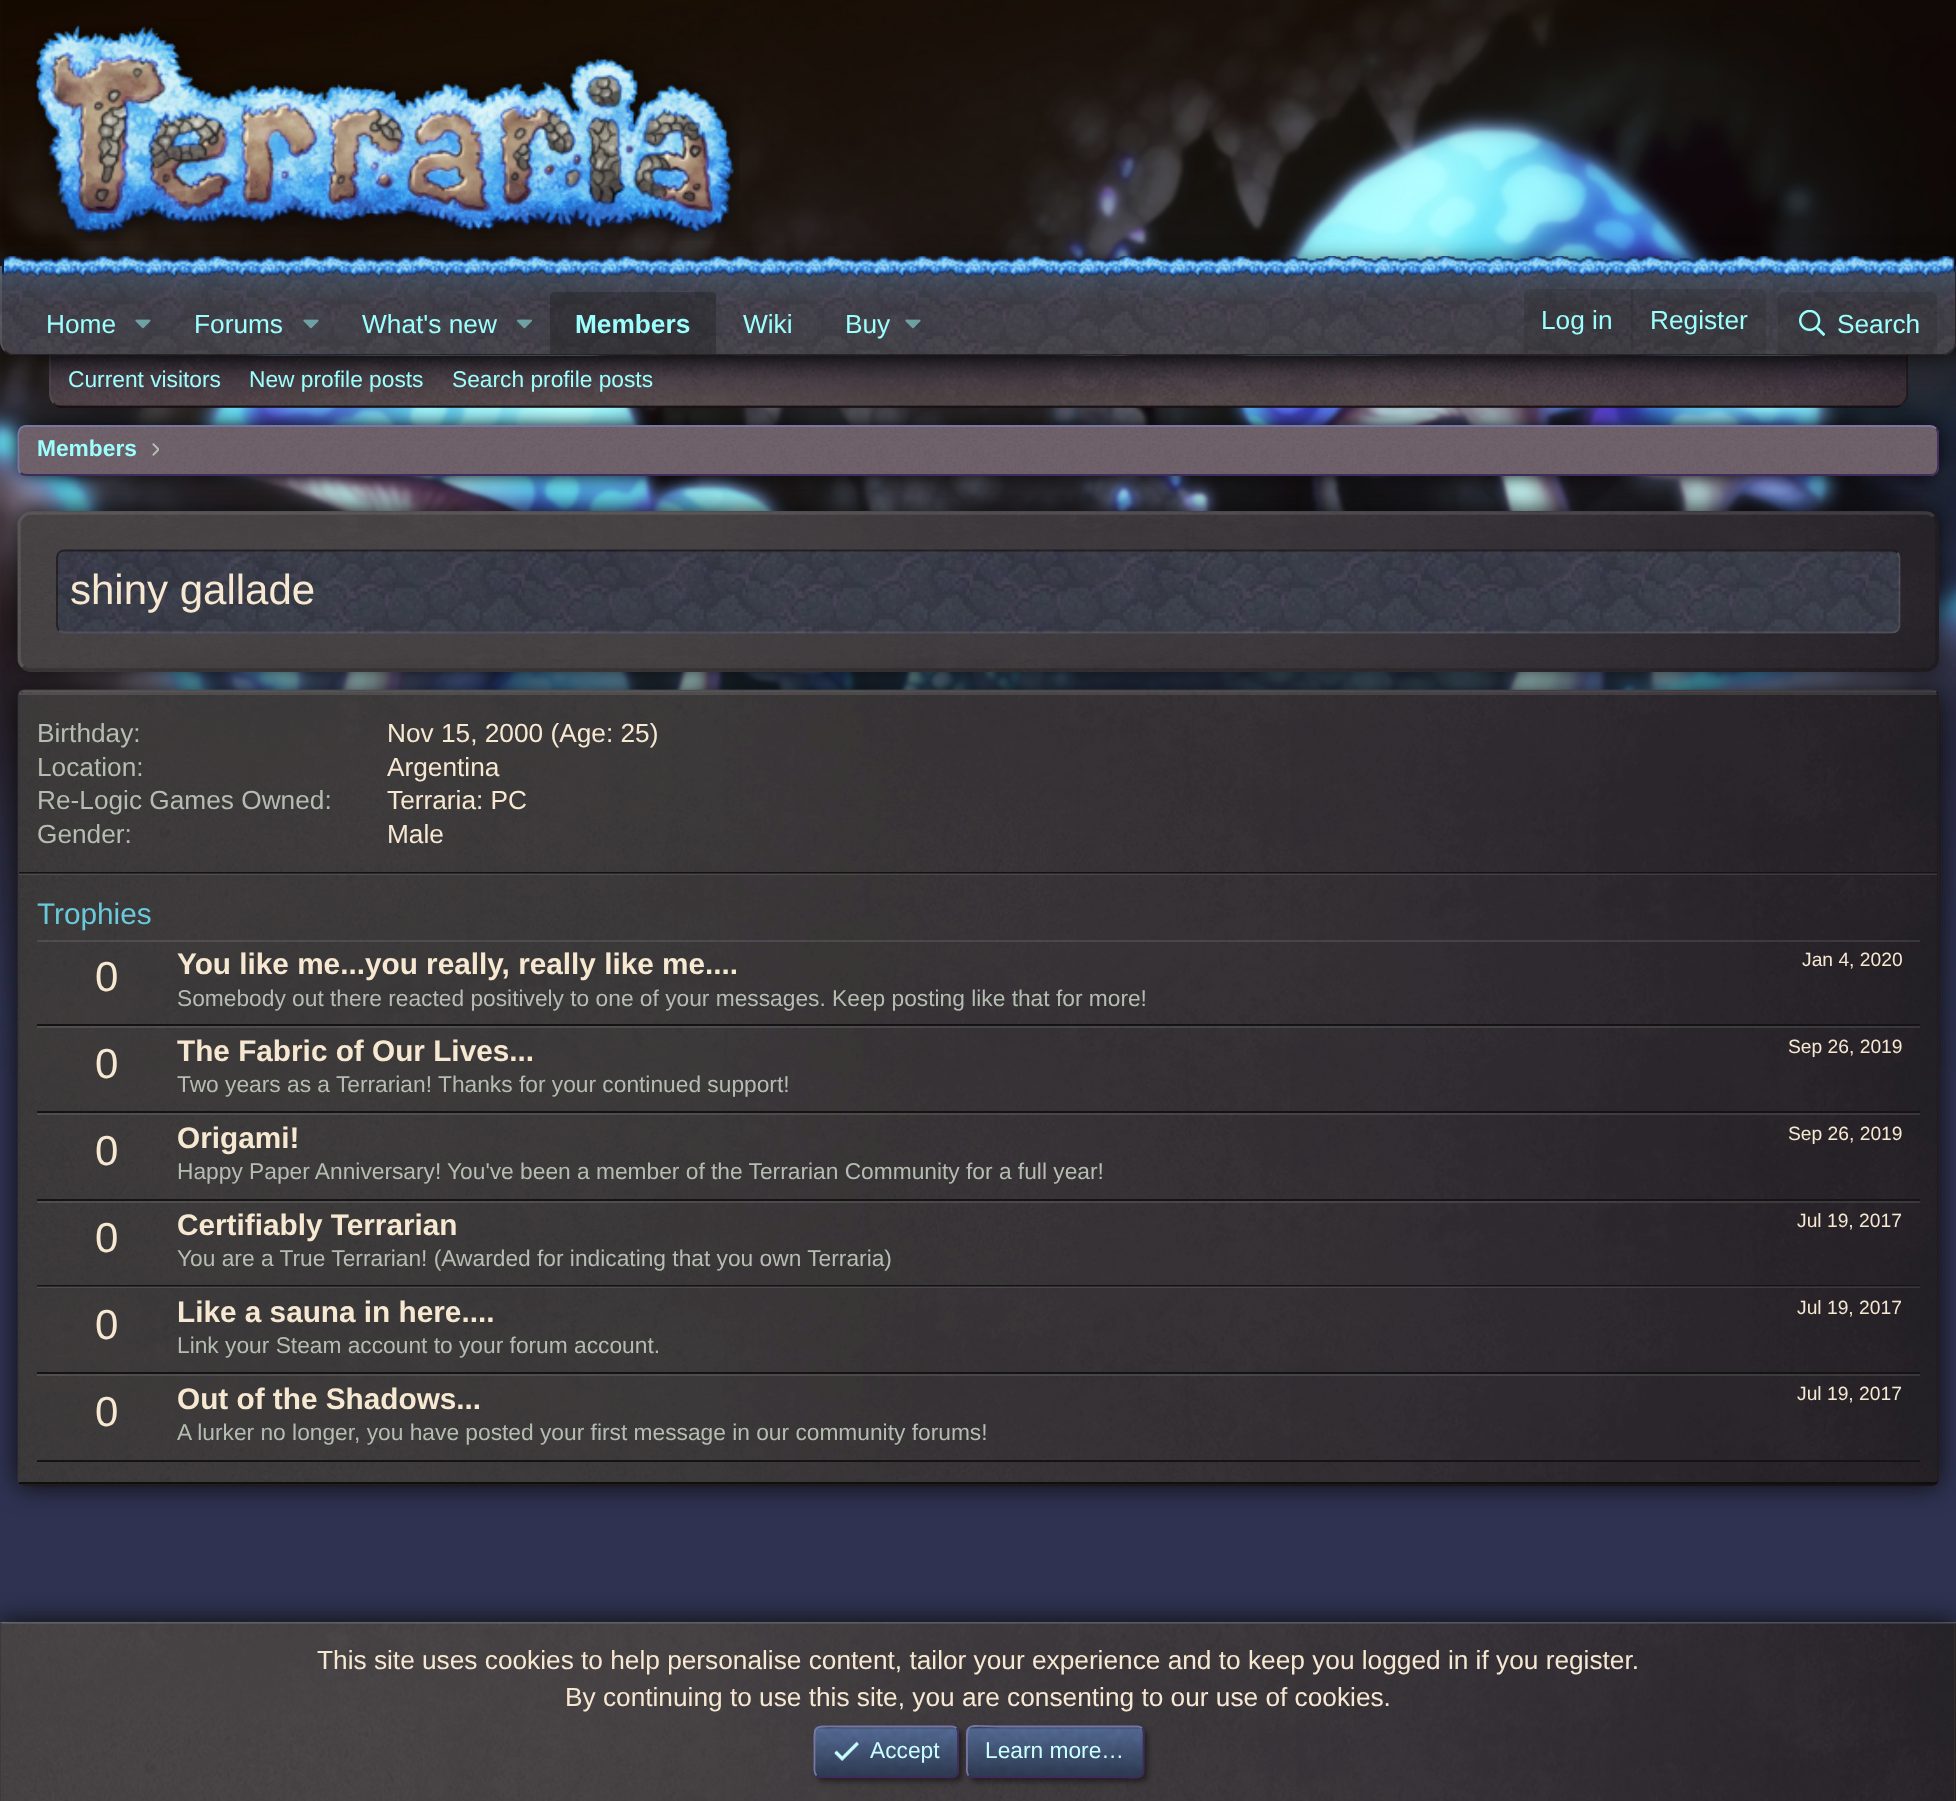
async function draw(canvas) {
  canvas.width = 1956;
  canvas.height = 1801;
  const ctx = canvas.getContext('2d');
  ctx.miterLimit = 4;
  ctx.fontKerning = 'normal';
  function label(s, x, y, font, color) {
    ctx.font = font;
    ctx.fillStyle = color;
    ctx.fillText(s, x, y);
  }
  function rect(x, y, w, h, color) {
    ctx.fillStyle = color;
    ctx.fillRect(x, y, w, h);
  }
  async function image(src, x, y, w, h) {
    const img = new Image();
    img.src = src;
    await img.decode();
    ctx.drawImage(img, x, y, w, h);
  }
  let path;

  rect(0, 0, 1956, 1801, '#2f3251');
  await image('assets/img1.png', 0, 0, 1956, 1134);
  await image('assets/img2.png', 35, 25, 705, 216);
  ctx.fillStyle = '#0a0a0a';
  ctx.filter = 'blur(9px)';
  ctx.beginPath();
  ctx.roundRect(18, 425, 1921, 51, 9);
  ctx.fill();
  ctx.filter = 'none';
  await image('assets/img11.png', 49, 355, 1859, 53);
  ctx.fillStyle = '#0d040280';
  path = new Path2D('M1908 355V397C1907 400 1905 402 1903 404L1902 403C1905 400 1906 397 1906 394V355Z');
  ctx.fill(path);
  path = new Path2D('M60 408C58 407 55 406 53 404L54 402C56 405 59 406 63 406H1894C1897 406 1900 405 1902 403L1903 404C1901 406 1899 407 1896 408Z');
  ctx.fill(path);
  ctx.fillStyle = '#ffffff1a';
  path = new Path2D('M49 355V394C49 398 51 401 53 404L54 402C52 400 51 397 51 394V355Z');
  ctx.fill(path);
  ctx.fillStyle = '#0a0a0a';
  ctx.filter = 'blur(13px)';
  ctx.beginPath();
  ctx.roundRect(0, 266, 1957, 89, 14);
  ctx.fill();
  ctx.filter = 'none';
  await image('assets/img3.png', 0, 266, 1956, 89);
  ctx.fillStyle = '#0d040280';
  path = new Path2D('M1956 266H1955V341C1955 344 1954 348 1951 350L1952 351C1955 348 1956 345 1956 341Z');
  ctx.fill(path);
  path = new Path2D('M1952 351C1950 353 1946 355 1942 355H14C10 355 7 354 4 351L5 350C7 352 10 354 14 354H1942C1946 354 1949 352 1951 350Z');
  ctx.fill(path);
  ctx.fillStyle = '#ffffff1a';
  path = new Path2D('M0 266H2V341C2 344 3 348 5 350L4 351C2 349 0 345 0 341Z');
  ctx.fill(path);
  await image('assets/img4.png', 2, 256, 1953, 22);
  await image('assets/img5.png', 4, 256, 1950, 22);
  label('Home', 46, 333, '26.25px Liberation Sans', '#9cfffd');
  await image('assets/img6.png', 135, 319, 16, 10);
  label('Forums', 194, 333, '26.25px Liberation Sans', '#9cfffd');
  await image('assets/img7.png', 303, 319, 16, 10);
  label('What\'s new', 362, 333, '26.25px Liberation Sans', '#9cfffd');
  await image('assets/img8.png', 516, 319, 16, 10);
  ctx.fillStyle = '#1414144d';
  ctx.beginPath();
  ctx.roundRect(550, 292, 166, 62, [4, 4, 0, 0]);
  ctx.fill();
  label('Members', 575, 333, 'bold 26.25px Liberation Sans', '#9cfffd');
  label('Wiki', 743, 333, '26.25px Liberation Sans', '#9cfffd');
  label('Buy', 845, 333, '26.25px Liberation Sans', '#9cfffd');
  await image('assets/img9.png', 905, 319, 16, 10);
  ctx.fillStyle = '#14141426';
  ctx.beginPath();
  ctx.roundRect(1524, 289, 242, 65, [7, 7, 0, 0]);
  ctx.fill();
  label('Log in', 1541, 329, '26.25px Liberation Sans', '#9cfffd');
  rect(1631, 289, 2, 61, '#14141426');
  label('Register', 1650, 329, '26.25px Liberation Sans', '#9cfffd');
  ctx.fillStyle = '#14141426';
  ctx.beginPath();
  ctx.roundRect(1778, 292, 159, 62, [7, 7, 0, 0]);
  ctx.fill();
  await image('assets/img10.png', 1799, 310, 26, 26);
  label('Search', 1837, 333, '26.25px Liberation Sans', '#9cfffd');
  label('Current visitors', 68, 387, '22.75px Liberation Sans', '#9cfffd');
  label('New profile posts', 249, 387, '22.75px Liberation Sans', '#9cfffd');
  label('Search profile posts', 452, 387, '22.75px Liberation Sans', '#9cfffd');
  await image('assets/img12.png', 17, 425, 1922, 51);
  path = new Path2D('M1936 428.5C1939 431.5 1938 435.5 1938 439.5V456C1938 462.5 1940.5 475 1930 475H26.5C24 475 22 474.5 20.5 473');
  ctx.strokeStyle = '#3f2c5c';
  ctx.lineWidth = 1.8;
  ctx.stroke(path);
  path = new Path2D('M20.5 473C17.5 470 18.5 465.5 18.5 461.5V445C18.5 439 16 426 26 426H1930C1932.5 426 1934.5 427 1936 428.5');
  ctx.strokeStyle = '#7876a2';
  ctx.stroke(path);
  label('Members', 37, 456, 'bold 22.75px Liberation Sans', '#9cfffd');
  await image('assets/img13.png', 152, 443, 7, 13);
  ctx.fillStyle = '#0a0a0a';
  ctx.filter = 'blur(13px)';
  ctx.beginPath();
  ctx.roundRect(18, 511, 1921, 161, 14);
  ctx.fill();
  ctx.filter = 'none';
  await image('assets/img14.png', 17, 511, 1922, 161);
  path = new Path2D('M1933.5 516.5C1936 518.5 1937 522 1937 525V658C1937 661 1936 664.5 1933.5 666.5C1931.5 669 1928 670 1925 670H31.5C28.5 670 25 669 23 666.5');
  ctx.strokeStyle = '#0d040233';
  ctx.lineWidth = 3.5;
  ctx.stroke(path);
  path = new Path2D('M23 666.5C20.5 664.5 19 661 19 658V525C19 522 20.5 518.5 23 516.5C25 514 28.5 513 31.5 513H1925C1928 513 1931.5 514 1933.5 516.5');
  ctx.strokeStyle = '#ffffff1a';
  ctx.stroke(path);
  await image('assets/img15.png', 56, 549, 1845, 85);
  path = new Path2D('M1897.5 552.5C1899 554 1899.5 556 1899.5 558V625C1899.5 627 1899 629 1897.5 630.5C1896 632 1894 632.5 1892 632.5H65C62.5 632.5 60.5 632 59 630.5');
  ctx.lineWidth = 1.8;
  ctx.stroke(path);
  path = new Path2D('M59 630.5C57.5 629 57 627 57 625V558C57 556 57.5 554 59 552.5C60.5 551 62.5 550.5 65 550.5H1892C1894 550.5 1896 551 1897.5 552.5');
  ctx.strokeStyle = '#0d040280';
  ctx.stroke(path);
  label('shiny gallade', 70, 604, '42px Liberation Sans', '#f7e8d1');
  ctx.fillStyle = '#0a0a0a';
  ctx.filter = 'blur(13px)';
  ctx.beginPath();
  ctx.roundRect(18, 690, 1921, 796, 7);
  ctx.fill();
  ctx.filter = 'none';
  await image('assets/img16.png', 17, 689, 1922, 797);
  path = new Path2D('M1936.5 692C1937.5 693.5 1938 695 1938 696.5V1479C1938 1480.5 1937.5 1482 1936.5 1483C1935 1484 1933.5 1485 1932 1485H24.5C23 1485 21.5 1484 20 1483');
  ctx.stroke(path);
  path = new Path2D('M20 1483C19 1482 18.5 1480.5 18.5 1479V696.5C18.5 695 19 693.5 20 692C21.5 691 23 690.5 24.5 690.5H1932C1933.5 690.5 1935 691 1936.5 692');
  ctx.strokeStyle = '#ffffff1a';
  ctx.stroke(path);
  rect(23, 691, 1913, 2, '#ffffff1a');
  rect(19, 693, 1918, 2, '#ffffff1a');
  rect(19, 872, 1918, 2, '#141414');
  label('Birthday:', 37, 742, '26.25px Liberation Sans', '#b5bdb2');
  label('Nov 15, 2000 (Age: 25)', 387, 742, '26.25px Liberation Sans', '#f7e8d1');
  label('Location:', 37, 776, '26.25px Liberation Sans', '#b5bdb2');
  label('Argentina', 387, 776, '26.25px Liberation Sans', '#f7e8d1');
  label('Re-Logic Games Owned:', 37, 809, '26.25px Liberation Sans', '#b5bdb2');
  label('Terraria: PC', 387, 809, '26.25px Liberation Sans', '#f7e8d1');
  label('Gender:', 37, 843, '26.25px Liberation Sans', '#b5bdb2');
  label('Male', 387, 843, '26.25px Liberation Sans', '#f7e8d1');
  rect(19, 873, 1918, 2, '#ffffff1a');
  rect(19, 1482, 1918, 2, '#0f0f0f');
  label('Trophies', 37, 924, '29.75px Liberation Sans', '#69c9db');
  rect(37, 940, 1883, 2, '#ffffff1a');
  rect(37, 1024, 1883, 2, '#141414');
  label('0', 95, 991, '42px Liberation Sans', '#f7e8d1');
  label('You like me...you really, really like me....', 177, 974, 'bold 29.75px Liberation Sans', '#f7e8d1');
  label('Jan 4, 2020', 1802, 966, '19.25px Liberation Sans', '#f7e8d1');
  label('Somebody out there reacted positively to one of your messages. Keep posting like that for more!', 177, 1006, '22.75px Liberation Sans', '#b5bdb2');
  rect(37, 1026, 1883, 2, '#ffffff1a');
  rect(37, 1111, 1883, 2, '#141414');
  label('0', 95, 1078, '42px Liberation Sans', '#f7e8d1');
  label('The Fabric of Our Lives...', 177, 1061, 'bold 29.75px Liberation Sans', '#f7e8d1');
  label('Sep 26, 2019', 1788, 1053, '19.25px Liberation Sans', '#f7e8d1');
  label('Two years as a Terrarian!', 177, 1092, '22.75px Liberation Sans', '#b5bdb2');
  label('Thanks for your continued support!', 438, 1092, '22.75px Liberation Sans', '#b5bdb2');
  rect(37, 1113, 1883, 2, '#ffffff1a');
  rect(37, 1199, 1883, 2, '#141414');
  label('0', 95, 1165, '42px Liberation Sans', '#f7e8d1');
  label('Origami!', 177, 1148, 'bold 29.75px Liberation Sans', '#f7e8d1');
  label('Sep 26, 2019', 1788, 1140, '19.25px Liberation Sans', '#f7e8d1');
  label('Happy Paper Anniversary!', 177, 1179, '22.75px Liberation Sans', '#b5bdb2');
  label('You\'ve been a member of the Terrarian Community for a full year!', 447, 1179, '22.75px Liberation Sans', '#b5bdb2');
  rect(37, 1201, 1883, 2, '#ffffff1a');
  rect(37, 1285, 1883, 2, '#141414');
  label('0', 95, 1252, '42px Liberation Sans', '#f7e8d1');
  label('Certifiably Terrarian', 177, 1235, 'bold 29.75px Liberation Sans', '#f7e8d1');
  label('Jul 19, 2017', 1797, 1227, '19.25px Liberation Sans', '#f7e8d1');
  label('You are a True Terrarian! (Awarded for indicating that you own Terraria)', 177, 1266, '22.75px Liberation Sans', '#b5bdb2');
  rect(37, 1286, 1883, 2, '#ffffff1a');
  rect(37, 1372, 1883, 2, '#141414');
  label('0', 95, 1339, '42px Liberation Sans', '#f7e8d1');
  label('Like a sauna in here....', 177, 1322, 'bold 29.75px Liberation Sans', '#f7e8d1');
  label('Jul 19, 2017', 1797, 1314, '19.25px Liberation Sans', '#f7e8d1');
  label('Link your Steam account to your forum account.', 177, 1353, '22.75px Liberation Sans', '#b5bdb2');
  rect(37, 1374, 1883, 2, '#ffffff1a');
  rect(37, 1460, 1883, 2, '#141414');
  label('0', 95, 1426, '42px Liberation Sans', '#f7e8d1');
  label('Out of the Shadows...', 177, 1409, 'bold 29.75px Liberation Sans', '#f7e8d1');
  label('Jul 19, 2017', 1797, 1400, '19.25px Liberation Sans', '#f7e8d1');
  label('A lurker no longer, you have posted your first message in our community forums!', 177, 1440, '22.75px Liberation Sans', '#b5bdb2');
  rect(0, 1622, 1956, 1, '#69c9db');
  ctx.fillStyle = '#0a0a0a';
  ctx.filter = 'blur(13px)';
  ctx.beginPath();
  ctx.rect(0, 1622, 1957, 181);
  ctx.fill();
  ctx.filter = 'none';
  await image('assets/img17.png', 0, 1621, 1956, 180);
  ctx.fillStyle = '#ffffff1a';
  path = new Path2D('M0 1622H1956L1955 1624H2Z');
  ctx.fill(path);
  ctx.fillStyle = '#0d040280';
  path = new Path2D('M1956 1622V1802L1955 1801V1624Z');
  ctx.fill(path);
  ctx.fillStyle = '#ffffff1a';
  path = new Path2D('M0 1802V1622L2 1624V1801Z');
  ctx.fill(path);
  label('This site uses cookies to help personalise content, tailor your experience and to keep you logged in if you register.', 317, 1669, '26.25px Liberation Sans', '#f7e8d1');
  label('By continuing to use this site, you are consenting to our use of cookies.', 565, 1706, '26.25px Liberation Sans', '#f7e8d1');
  ctx.fillStyle = '#0a0a0a80';
  ctx.filter = 'blur(2.5px)';
  ctx.beginPath();
  ctx.roundRect(817, 1729, 146, 53, 7);
  ctx.fill();
  ctx.filter = 'none';
  await image('assets/img18.png', 813, 1725, 146, 53);
  path = new Path2D('M956.5 1728C959 1731 958 1735.5 958 1739V1752C958 1781.5 962 1777 930 1777H821C819 1777 817.5 1776.5 816.5 1775.5');
  ctx.strokeStyle = '#3f2c5c';
  ctx.stroke(path);
  path = new Path2D('M816.5 1775.5C813.5 1772.5 814.5 1768 814.5 1764.5V1752C814.5 1722 811 1726.5 842.5 1726.5H952C953.5 1726.5 955 1727 956.5 1728');
  ctx.strokeStyle = '#7876a2';
  ctx.stroke(path);
  await image('assets/img19.png', 834, 1741, 25, 20);
  label('Accept', 870, 1758, '22.75px Liberation Sans', '#c8ffff');
  ctx.fillStyle = '#0a0a0a80';
  ctx.filter = 'blur(2.5px)';
  ctx.beginPath();
  ctx.roundRect(970, 1729, 178, 53, 7);
  ctx.fill();
  ctx.filter = 'none';
  await image('assets/img20.png', 966, 1725, 179, 53);
  path = new Path2D('M1142 1728C1144.5 1731 1143.5 1735.5 1143.5 1739V1752C1143.5 1784 1147 1777 1110 1777H973C971.5 1777 970 1776.5 968.5 1775.5');
  ctx.strokeStyle = '#3f2c5c';
  ctx.stroke(path);
  path = new Path2D('M968.5 1775.5C966 1772.5 967 1768 967 1764.5V1752C967 1719.5 963.5 1726.5 1000.5 1726.5H1137.5C1139 1726.5 1140.5 1727 1142 1728');
  ctx.strokeStyle = '#7876a2';
  ctx.stroke(path);
  label('Learn more…', 985, 1758, '22.75px Liberation Sans', '#c8ffff');
}

draw(document.querySelector('canvas'));
